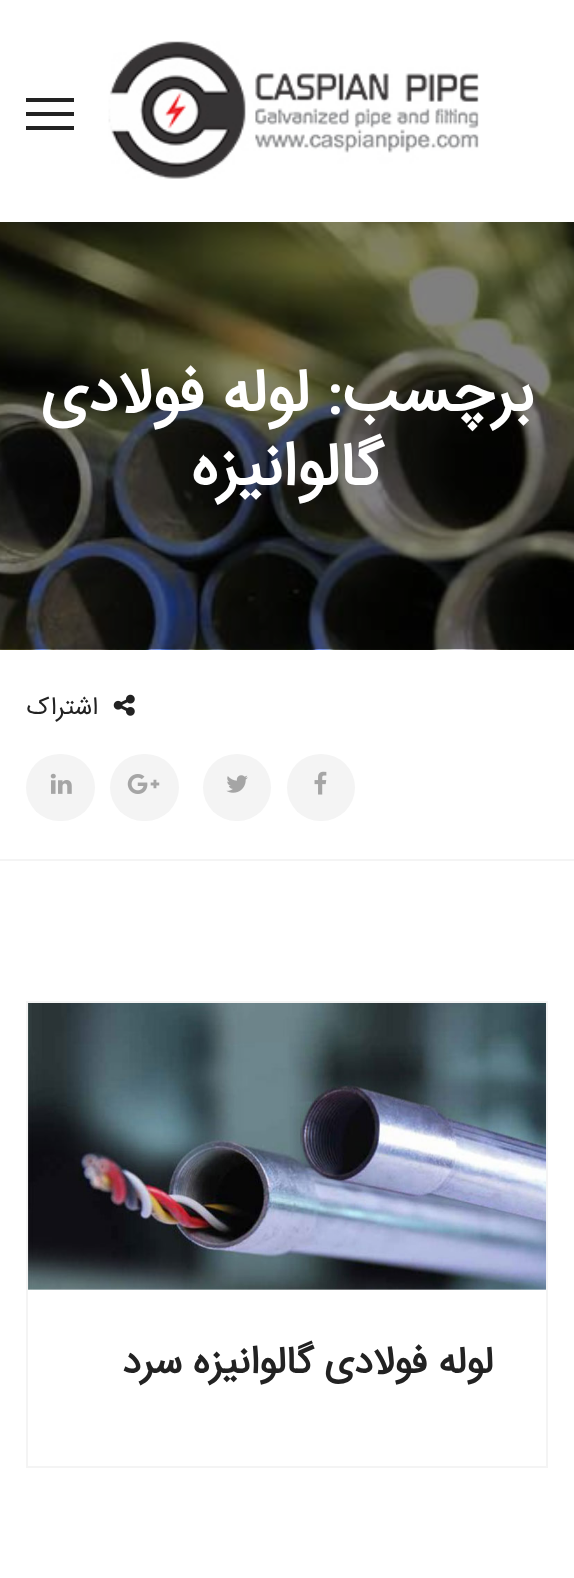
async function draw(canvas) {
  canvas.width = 574;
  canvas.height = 1578;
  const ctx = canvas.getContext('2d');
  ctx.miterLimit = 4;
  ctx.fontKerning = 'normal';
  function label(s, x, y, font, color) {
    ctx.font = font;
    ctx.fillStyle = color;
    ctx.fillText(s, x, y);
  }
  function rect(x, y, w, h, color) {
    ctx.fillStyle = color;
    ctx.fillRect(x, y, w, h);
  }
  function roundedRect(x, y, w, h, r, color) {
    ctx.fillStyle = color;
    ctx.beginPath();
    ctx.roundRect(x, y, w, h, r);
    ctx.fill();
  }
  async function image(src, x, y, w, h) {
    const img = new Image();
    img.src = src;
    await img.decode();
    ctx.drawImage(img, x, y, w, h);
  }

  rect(0, 0, 574, 1578, '#fff');
  await image('assets/img1.png', 108, 41, 371, 138);
  rect(26, 112, 48, 4, '#222');
  rect(26, 98, 48, 4, '#222');
  rect(26, 126, 48, 4, '#222');
  await image('assets/img2.png', 0, 222, 574, 428);
  ctx.direction = 'rtl';
  label('برچسب:', 534, 411, 'bold 61.25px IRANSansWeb', '#fff');
  label('لوله فولادی', 309, 411, 'bold 61.25px IRANSansWeb', '#fff');
  label('گالوانیزه', 383, 485, 'bold 61.25px IRANSansWeb', '#fff');
  rect(0, 859, 574, 2, '#f4f4f4');
  await image('assets/img3.png', 113, 694, 22, 22);
  label('اشتراک', 98, 714, '24.5px IRANSansWeb', '#222');
  roundedRect(287, 754, 68, 67, 33.5, '#f4f4f4');
  await image('assets/img4.png', 314, 771, 13, 24);
  roundedRect(203, 754, 68, 67, 33.5, '#f4f4f4');
  await image('assets/img5.png', 226, 775, 22, 18);
  roundedRect(110, 754, 69, 67, 33.5, '#f4f4f4');
  await image('assets/img6.png', 127, 774, 33, 20);
  roundedRect(26, 754, 69, 67, 33.5, '#f4f4f4');
  await image('assets/img7.png', 50, 773, 22, 21);
  ctx.strokeStyle = '#f4f4f4';
  ctx.lineWidth = 2;
  ctx.strokeRect(27, 1002, 520, 465);
  await image('assets/img8.png', 28, 1003, 518, 287);
  label('لوله فولادی گالوانیزه سرد', 493, 1373, 'bold 38.5px IRANSansWeb', '#222');
}

draw(document.querySelector('canvas'));
